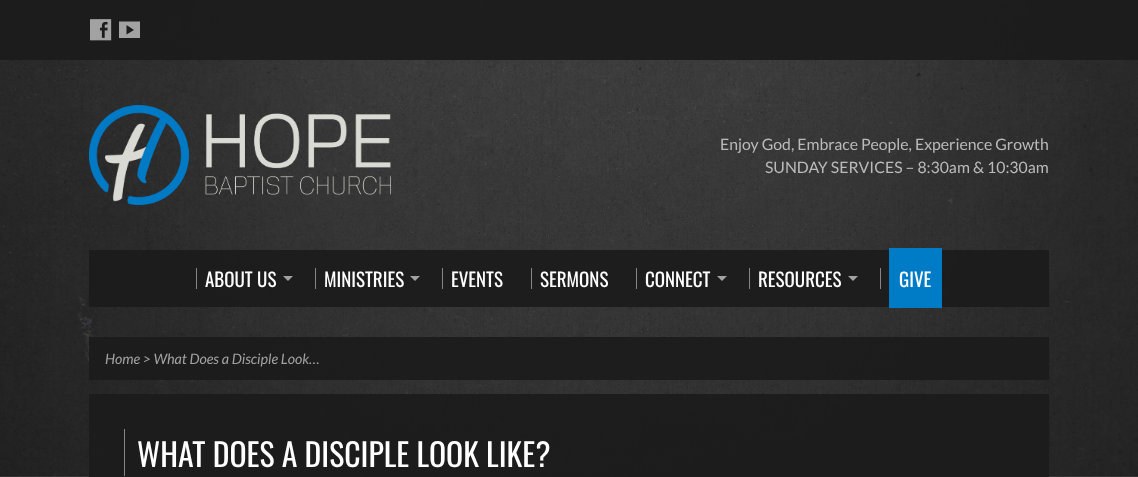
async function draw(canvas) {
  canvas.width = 1138;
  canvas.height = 477;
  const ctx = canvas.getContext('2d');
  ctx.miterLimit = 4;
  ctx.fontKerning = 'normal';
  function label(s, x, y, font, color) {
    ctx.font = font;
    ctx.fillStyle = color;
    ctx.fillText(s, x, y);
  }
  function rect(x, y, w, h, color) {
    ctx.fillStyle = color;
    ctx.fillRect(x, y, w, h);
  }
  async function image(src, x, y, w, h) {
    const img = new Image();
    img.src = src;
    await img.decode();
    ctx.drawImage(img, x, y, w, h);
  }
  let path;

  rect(0, 0, 1138, 477, '#fff');
  await image('assets/img1.png', 0, 0, 1138, 477);
  rect(0, 0, 1138, 60, '#1c1c1cf0');
  await image('assets/img2.png', 90, 19, 22, 22);
  ctx.fillStyle = '#a2a2a2';
  path = new Path2D('M140 38H119V21.5H140ZM126.5 34.5L134 30L126.5 25Z');
  ctx.fill(path);
  await image('assets/img3.png', 89, 105, 302, 100);
  label('Enjoy God, Embrace People, Experience Growth', 720, 150, '15.8px Lato', '#bababa');
  label('SUNDAY SERVICES – 8:30am & 10:30am', 765, 173, '15.8px Lato', '#bababa');
  rect(89, 250, 960, 57, '#1c1c1cf0');
  rect(196, 268, 1, 21, '#868686');
  label('ABOUT US', 205, 287, '19px Oswald', '#fff');
  ctx.fillStyle = '#a2a2a2';
  path = new Path2D('M283 276H293L288 281Z');
  ctx.fill(path);
  rect(315, 268, 1, 21, '#868686');
  label('MINISTRIES', 324, 287, '19px Oswald', '#fff');
  ctx.fillStyle = '#a2a2a2';
  path = new Path2D('M410 276H420L415 281Z');
  ctx.fill(path);
  rect(442, 268, 1, 21, '#868686');
  label('EVENTS', 451, 287, '19px Oswald', '#fff');
  rect(531, 268, 1, 21, '#868686');
  label('SERMONS', 540, 287, '19px Oswald', '#fff');
  rect(636, 268, 1, 21, '#868686');
  label('CONNECT', 645, 287, '19px Oswald', '#fff');
  ctx.fillStyle = '#a2a2a2';
  path = new Path2D('M717 276H727L722 281Z');
  ctx.fill(path);
  rect(749, 268, 1, 21, '#868686');
  label('RESOURCES', 758, 287, '19px Oswald', '#fff');
  ctx.fillStyle = '#a2a2a2';
  path = new Path2D('M848 276H858L853 281Z');
  ctx.fill(path);
  rect(880, 268, 1, 21, '#868686');
  rect(889, 248, 53, 60, '#007bc6');
  label('GIVE', 899, 287, '19px Oswald', '#fff');
  rect(89, 337, 960, 43, '#1c1c1cf0');
  label('Home > What Does a Disciple Look…', 105, 364, 'italic 14.4px Lato', '#a2a2a2');
  rect(89, 394, 960, 83, '#1c1c1cf0');
  rect(124, 429, 1, 47, '#868686');
  label('WHAT DOES A DISCIPLE LOOK LIKE?', 137, 467, '31.75px Oswald', '#fff');
}

draw(document.querySelector('canvas'));
